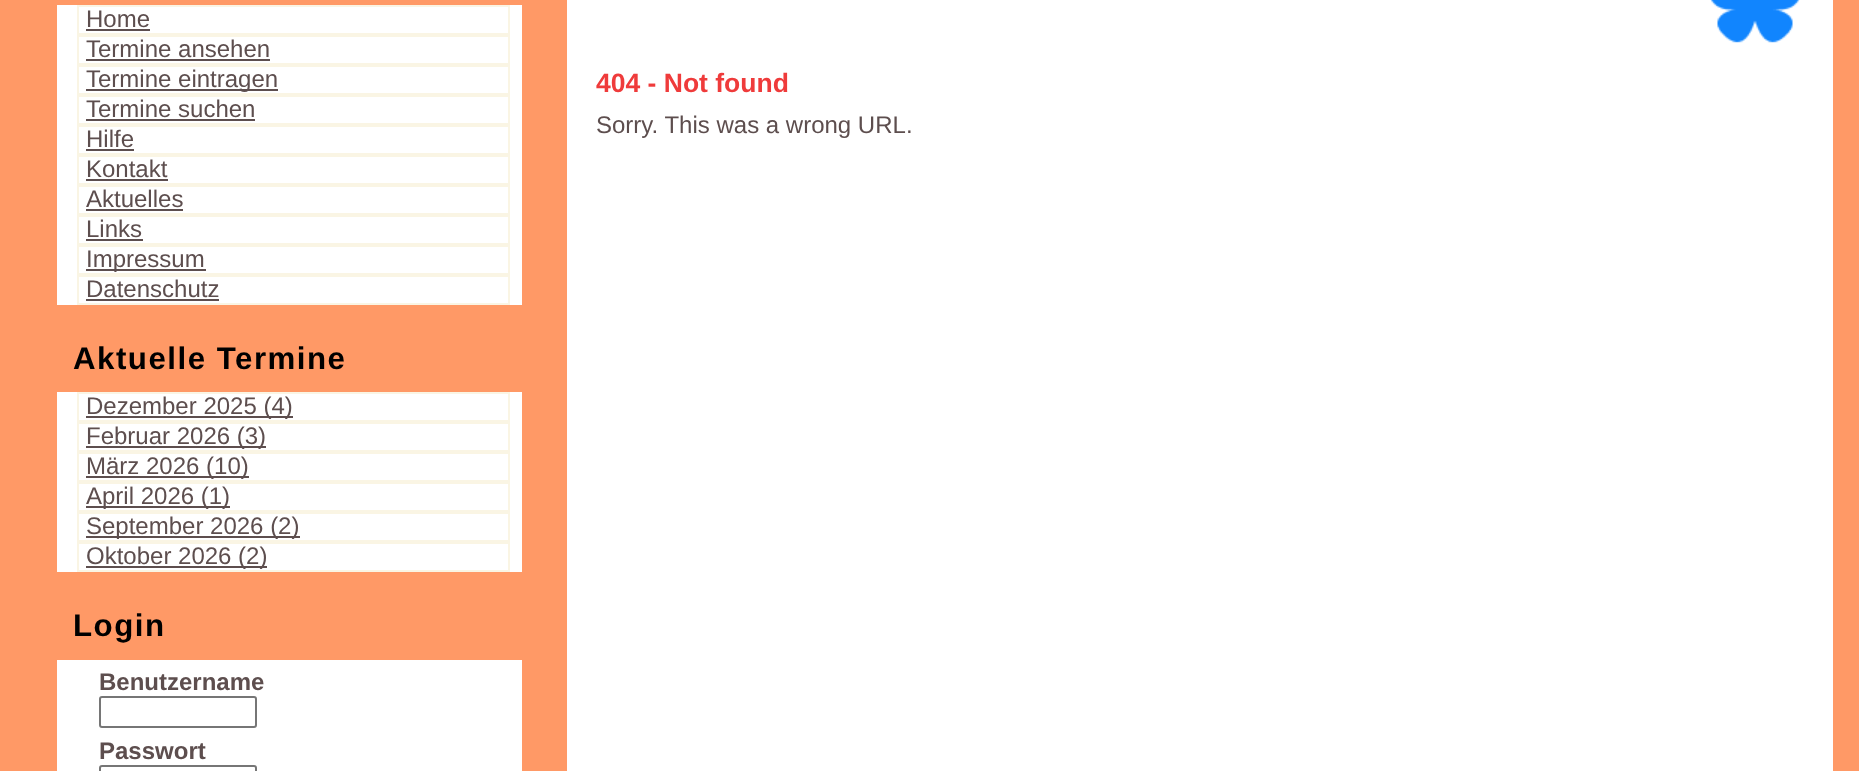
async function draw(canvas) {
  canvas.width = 1859;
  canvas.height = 771;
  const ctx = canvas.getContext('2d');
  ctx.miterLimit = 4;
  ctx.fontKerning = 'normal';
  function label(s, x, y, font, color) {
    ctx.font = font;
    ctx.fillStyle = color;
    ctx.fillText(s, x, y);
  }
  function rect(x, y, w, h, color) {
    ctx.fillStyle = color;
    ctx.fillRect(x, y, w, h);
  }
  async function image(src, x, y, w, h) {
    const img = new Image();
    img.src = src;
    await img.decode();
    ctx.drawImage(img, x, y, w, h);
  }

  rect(0, 0, 1859, 771, '#f96');
  rect(57, 5, 465, 300, '#fff');
  ctx.strokeStyle = '#faf5e4';
  ctx.lineWidth = 2;
  ctx.strokeRect(78, 6, 431, 28);
  label('Home', 86, 27, '24px Liberation Sans', '#5d4e4e');
  rect(86, 29, 64, 2, '#5d4e4e');
  ctx.strokeRect(78, 36, 431, 28);
  label('Termine ansehen', 86, 57, '24px Liberation Sans', '#5d4e4e');
  rect(86, 59, 184, 2, '#5d4e4e');
  ctx.strokeRect(78, 66, 431, 28);
  rect(86, 89, 192, 2, '#5d4e4e');
  label('Termine eintragen', 86, 87, '24px Liberation Sans', '#5d4e4e');
  ctx.strokeRect(78, 96, 431, 28);
  label('Termine suchen', 86, 117, '24px Liberation Sans', '#5d4e4e');
  rect(86, 119, 169, 2, '#5d4e4e');
  ctx.strokeRect(78, 126, 431, 28);
  label('Hilfe', 86, 147, '24px Liberation Sans', '#5d4e4e');
  rect(86, 149, 48, 2, '#5d4e4e');
  ctx.strokeRect(78, 156, 431, 28);
  label('Kontakt', 86, 177, '24px Liberation Sans', '#5d4e4e');
  rect(86, 179, 82, 2, '#5d4e4e');
  ctx.strokeRect(78, 186, 431, 28);
  label('Aktuelles', 86, 207, '24px Liberation Sans', '#5d4e4e');
  rect(86, 209, 97, 2, '#5d4e4e');
  ctx.strokeRect(78, 216, 431, 28);
  label('Links', 86, 237, '24px Liberation Sans', '#5d4e4e');
  rect(86, 239, 57, 2, '#5d4e4e');
  ctx.strokeRect(78, 246, 431, 28);
  rect(86, 269, 120, 2, '#5d4e4e');
  label('Impressum', 86, 267, '24px Liberation Sans', '#5d4e4e');
  ctx.strokeRect(78, 276, 431, 28);
  label('Datenschutz', 86, 297, '24px Liberation Sans', '#5d4e4e');
  rect(86, 299, 133, 2, '#5d4e4e');
  ctx.letterSpacing = '1.5px';
  label('Aktuelle Termine', 73, 369, 'bold 31.25px Liberation Sans', '#000');
  rect(57, 392, 465, 180, '#fff');
  ctx.strokeRect(78, 393, 431, 28);
  rect(86, 416, 207, 2, '#5d4e4e');
  ctx.letterSpacing = '0px';
  label('Dezember 2025 (4)', 86, 414, '24px Liberation Sans', '#5d4e4e');
  ctx.strokeRect(78, 423, 431, 28);
  rect(86, 446, 180, 2, '#5d4e4e');
  label('Februar 2026 (3)', 86, 444, '24px Liberation Sans', '#5d4e4e');
  ctx.strokeRect(78, 453, 431, 28);
  rect(86, 476, 163, 2, '#5d4e4e');
  label('März 2026 (10)', 86, 474, '24px Liberation Sans', '#5d4e4e');
  ctx.strokeRect(78, 483, 431, 28);
  rect(86, 506, 144, 2, '#5d4e4e');
  label('April 2026 (1)', 86, 504, '24px Liberation Sans', '#5d4e4e');
  ctx.strokeRect(78, 513, 431, 28);
  rect(86, 536, 214, 2, '#5d4e4e');
  label('September 2026 (2)', 86, 534, '24px Liberation Sans', '#5d4e4e');
  ctx.strokeRect(78, 543, 431, 28);
  rect(86, 566, 181, 2, '#5d4e4e');
  label('Oktober 2026 (2)', 86, 564, '24px Liberation Sans', '#5d4e4e');
  ctx.letterSpacing = '1.5px';
  label('Login', 73, 636, 'bold 31.25px Liberation Sans', '#000');
  rect(57, 660, 465, 111, '#fff');
  ctx.letterSpacing = '0px';
  label('Benutzername', 99, 690, 'bold 24px Liberation Sans', '#5d4e4e');
  ctx.beginPath();
  ctx.roundRect(100, 697, 156, 30, 2);
  ctx.strokeStyle = '#767676';
  ctx.stroke();
  label('Passwort', 99, 759, 'bold 24px Liberation Sans', '#5d4e4e');
  ctx.beginPath();
  ctx.roundRect(100, 766, 156, 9, 2);
  ctx.stroke();
  rect(567, 0, 1266, 771, '#fff');
  await image('assets/img1.png', 1710, 0, 90, 43);
  label('404 - Not found', 596, 92, 'bold 26.5px Liberation Sans', '#ef3b3b');
  label('Sorry. This was a wrong URL.', 596, 133, '24px Liberation Sans', '#5d4e4e');
}

draw(document.querySelector('canvas'));
